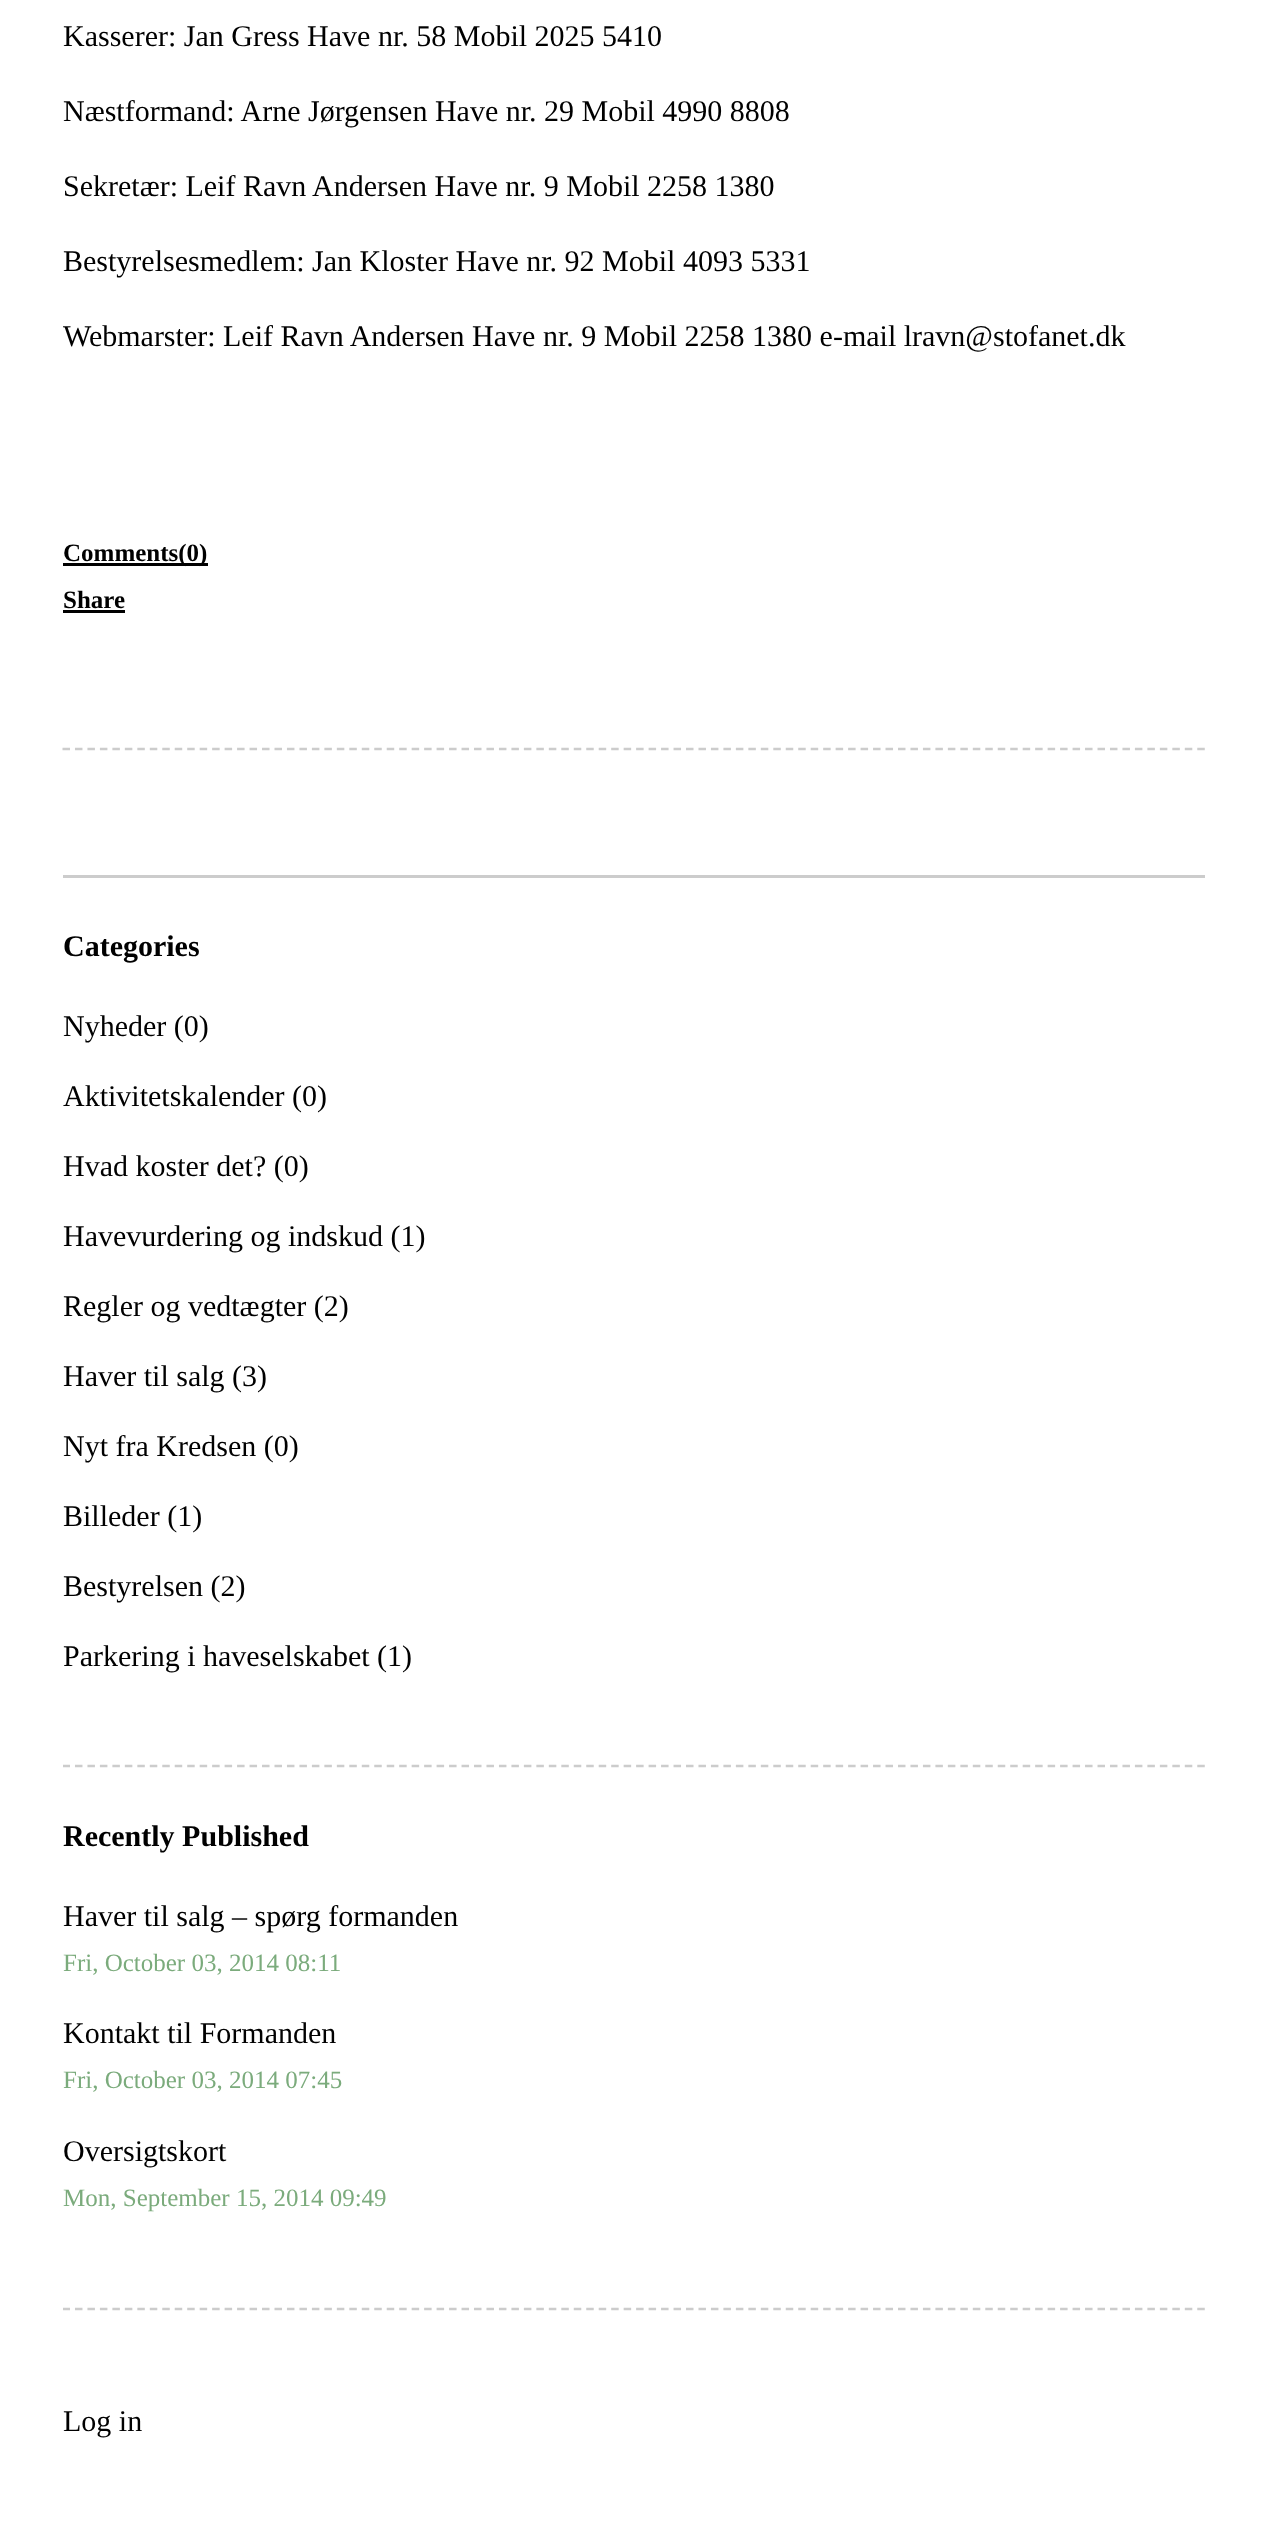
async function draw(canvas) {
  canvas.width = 1266;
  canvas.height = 2533;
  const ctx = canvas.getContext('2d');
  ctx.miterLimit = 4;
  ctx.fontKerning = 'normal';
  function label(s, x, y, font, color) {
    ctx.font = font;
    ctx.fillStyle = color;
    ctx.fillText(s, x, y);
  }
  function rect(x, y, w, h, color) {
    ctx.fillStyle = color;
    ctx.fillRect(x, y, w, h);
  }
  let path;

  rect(0, 0, 1266, 2533, '#fff');
  path = new Path2D('M62.5 749H1205');
  ctx.strokeStyle = '#ccc';
  ctx.lineWidth = 2.5;
  ctx.setLineDash([7.5, 4.97]);
  ctx.stroke(path);
  label('Kasserer: Jan Gress Have nr. 58 Mobil 2025 5410', 63, 46, '30px Liberation Serif', '#000');
  label('Næstformand: Arne Jørgensen Have nr. 29 Mobil 4990 8808', 63, 121, '30px Liberation Serif', '#000');
  label('Sekretær: Leif Ravn Andersen Have nr. 9 Mobil 2258 1380', 63, 196, '30px Liberation Serif', '#000');
  label('Bestyrelsesmedlem: Jan Kloster Have nr. 92 Mobil 4093 5331', 63, 271, '30px Liberation Serif', '#000');
  label('Webmarster: Leif Ravn Andersen Have nr. 9 Mobil 2258 1380 e-mail lravn@stofanet.dk', 63, 346, '30px Liberation Serif', '#000');
  rect(63, 563, 145, 3, '#000');
  label('Comments(0)', 63, 561, 'bold 25px Liberation Serif', '#000');
  label('Share', 63, 608, 'bold 25px Liberation Serif', '#000');
  rect(63, 610, 62, 3, '#000');
  rect(63, 875, 1142, 3, '#ccc');
  ctx.save();
  ctx.beginPath();
  ctx.rect(63, 878, 1142, 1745);
  ctx.clip();
  path = new Path2D('M62.5 1766H1205');
  ctx.stroke(path);
  ctx.restore();
  label('Categories', 63, 956, 'bold 30px Liberation Serif', '#000');
  label('Nyheder (0)', 63, 1036, '30px Liberation Serif', '#000');
  label('Aktivitetskalender (0)', 63, 1106, '30px Liberation Serif', '#000');
  label('Hvad koster det? (0)', 63, 1176, '30px Liberation Serif', '#000');
  label('Havevurdering og indskud (1)', 63, 1246, '30px Liberation Serif', '#000');
  label('Regler og vedtægter (2)', 63, 1316, '30px Liberation Serif', '#000');
  label('Haver til salg (3)', 63, 1386, '30px Liberation Serif', '#000');
  label('Nyt fra Kredsen (0)', 63, 1456, '30px Liberation Serif', '#000');
  label('Billeder (1)', 63, 1526, '30px Liberation Serif', '#000');
  label('Bestyrelsen (2)', 63, 1596, '30px Liberation Serif', '#000');
  label('Parkering i haveselskabet (1)', 63, 1666, '30px Liberation Serif', '#000');
  ctx.save();
  ctx.beginPath();
  ctx.rect(63, 878, 1142, 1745);
  ctx.clip();
  path = new Path2D('M62.5 2309H1205');
  ctx.stroke(path);
  ctx.restore();
  label('Recently Published', 63, 1846, 'bold 30px Liberation Serif', '#000');
  label('Haver til salg – spørg formanden', 63, 1926, '30px Liberation Serif', '#000');
  label('Fri, October 03, 2014 08:11', 63, 1971, '25px Liberation Serif', '#7bab7c');
  label('Kontakt til Formanden', 63, 2043, '30px Liberation Serif', '#000');
  label('Fri, October 03, 2014 07:45', 63, 2088, '25px Liberation Serif', '#7bab7c');
  label('Oversigtskort', 63, 2161, '30px Liberation Serif', '#000');
  label('Mon, September 15, 2014 09:49', 63, 2206, '25px Liberation Serif', '#7bab7c');
  label('Log in', 63, 2431, '30px Liberation Serif', '#000');
}

draw(document.querySelector('canvas'));
